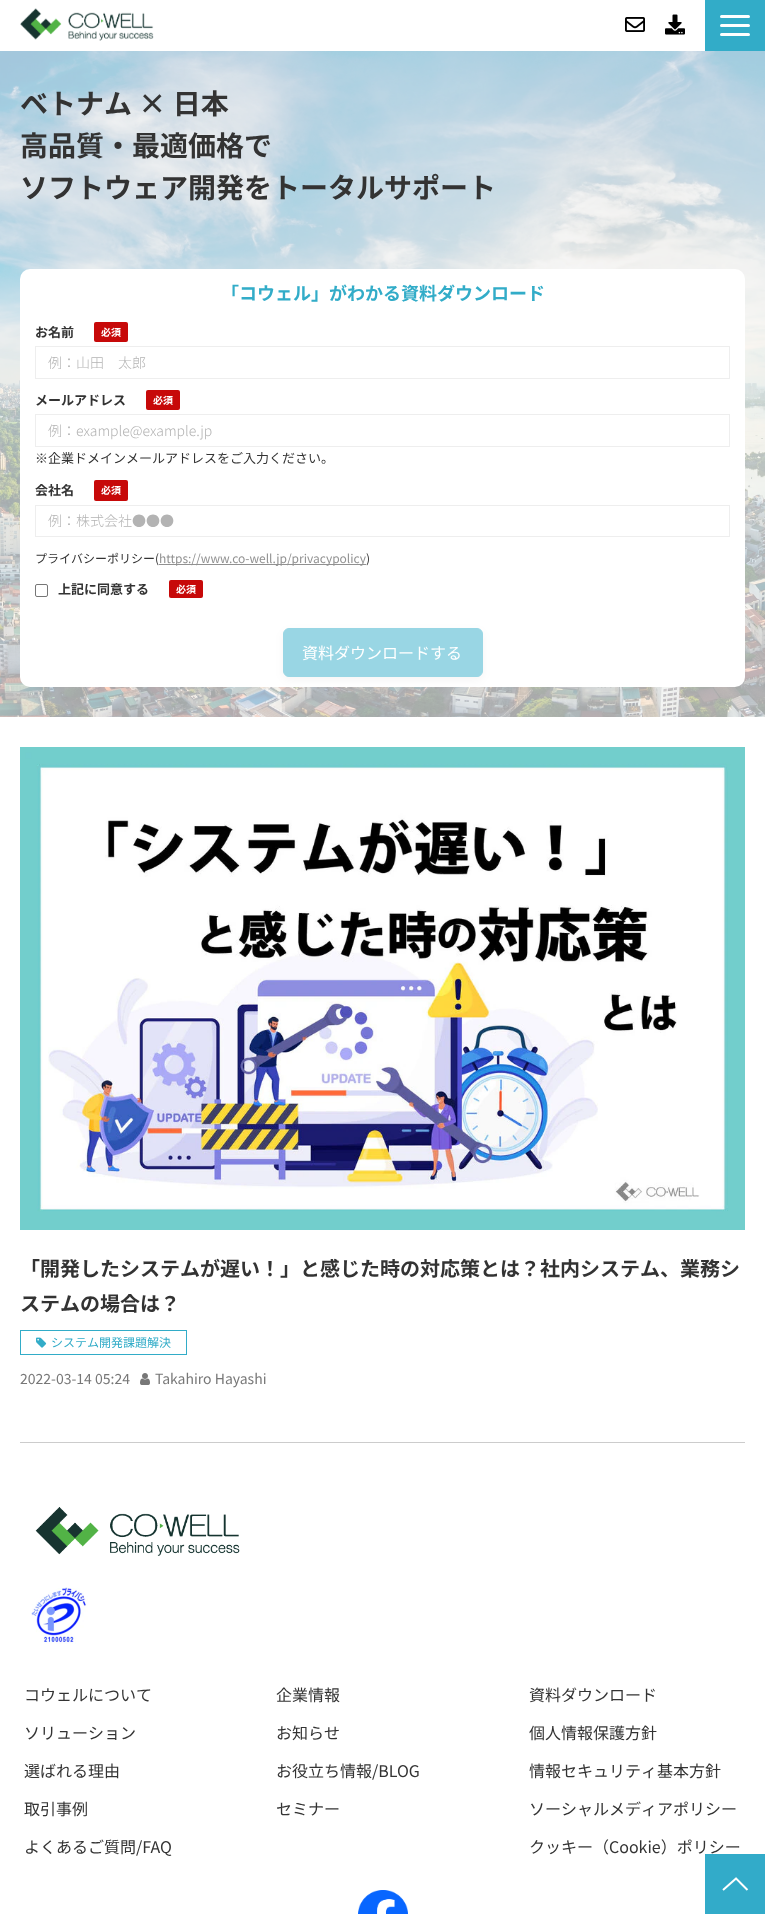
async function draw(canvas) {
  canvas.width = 765;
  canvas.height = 1914;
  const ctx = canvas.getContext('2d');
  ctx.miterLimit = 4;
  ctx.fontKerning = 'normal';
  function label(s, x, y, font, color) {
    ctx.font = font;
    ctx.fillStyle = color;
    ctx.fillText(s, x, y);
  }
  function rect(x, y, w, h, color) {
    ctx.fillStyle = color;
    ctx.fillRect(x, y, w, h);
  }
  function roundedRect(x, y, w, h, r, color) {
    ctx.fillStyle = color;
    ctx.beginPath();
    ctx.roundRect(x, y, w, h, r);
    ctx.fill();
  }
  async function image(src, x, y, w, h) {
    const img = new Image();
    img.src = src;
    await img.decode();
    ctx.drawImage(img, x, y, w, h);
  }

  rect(0, 0, 765, 1914, '#fff');
  await image('assets/img1.png', 20, 8, 134, 33);
  await image('assets/img2.png', 625, 17, 20, 15);
  await image('assets/img3.png', 665, 14, 20, 21);
  rect(705, 0, 60, 51, '#32acc8');
  roundedRect(720, 15, 30, 3, 1.5, '#fff');
  roundedRect(720, 24, 30, 3, 1.5, '#fff');
  roundedRect(720, 33, 30, 3, 1.5, '#fff');
  await image('assets/img4.png', 0, 51, 765, 666);
  label('ベトナム × 日本', 20, 114, 'bold 28px Noto Sans JP', '#333');
  label('高品質・最適価格で', 20, 156, 'bold 28px Noto Sans JP', '#333');
  label('ソフトウェア開発をトータルサポート', 20, 198, 'bold 28px Noto Sans JP', '#333');
  roundedRect(20, 269, 725, 418, 10, '#fff');
  label('「コウェル」がわかる資料ダウンロード', 221, 300, 'bold 18px Noto Sans JP', '#32acc8');
  label('お名前', 35, 337, 'bold 13px Noto Sans JP', '#333');
  roundedRect(94, 322, 34, 20, 2, '#c70909');
  label('必須', 101, 336, 'bold 10px Noto Sans JP', '#fff');
  ctx.strokeStyle = '#eee';
  ctx.strokeRect(35.5, 346.5, 694, 32);
  label('例：山田　太郎', 48, 368, '300 14px Noto Sans JP', '#b3b3b3');
  label('メールアドレス', 35, 405, 'bold 13px Noto Sans JP', '#333');
  roundedRect(146, 390, 34, 20, 2, '#c70909');
  label('必須', 153, 404, 'bold 10px Noto Sans JP', '#fff');
  ctx.strokeRect(35.5, 414.5, 694, 32);
  label('例：example@example.jp', 48, 436, '300 14px Noto Sans JP', '#b3b3b3');
  label('※企業ドメインメールアドレスをご入力ください。', 35, 463, '13px Noto Sans JP', '#333');
  label('会社名', 35, 495, 'bold 13px Noto Sans JP', '#333');
  roundedRect(94, 480, 34, 21, 2, '#c70909');
  label('必須', 101, 494, 'bold 10px Noto Sans JP', '#fff');
  ctx.strokeRect(35.5, 505.5, 694, 31);
  label('例：株式会社●●●', 48, 526, '300 14px Noto Sans JP', '#b3b3b3');
  label('プライバシーポリシー(', 35, 563, '12px Noto Sans JP', '#333');
  rect(159, 564, 207, 1, '#919191');
  label('https://www.co-well.jp/privacypolicy', 159, 563, '12px Noto Sans JP', '#919191');
  label(')', 366, 563, '12px Noto Sans JP', '#333');
  ctx.beginPath();
  ctx.roundRect(35.5, 584.5, 12, 12, 1.5);
  ctx.strokeStyle = '#767676';
  ctx.stroke();
  label('上記に同意する', 58, 594, 'bold 13px Noto Sans JP', '#333');
  roundedRect(169, 580, 34, 18, 2, '#c70909');
  label('必須', 176, 593, 'bold 10px Noto Sans JP', '#fff');
  ctx.fillStyle = '#0000000a';
  ctx.filter = 'blur(4px)';
  ctx.beginPath();
  ctx.roundRect(283, 631, 200, 49, 6);
  ctx.fill();
  ctx.filter = 'none';
  ctx.fillStyle = '#99d6e4';
  ctx.beginPath();
  ctx.roundRect(283.5, 628.5, 199, 48, 5.5);
  ctx.fill();
  ctx.strokeStyle = '#99d6e4';
  ctx.stroke();
  label('資料ダウンロードする', 302, 659, '16px Noto Sans JP', '#fff');
  rect(20, 1442, 725, 1, '#ccc');
  await image('assets/img5.png', 20, 747, 725, 483);
  label('「開発したシステムが遅い！」と感じた時の対応策とは？社内システム、業務シ', 20, 1276, 'bold 20px Noto Sans JP', '#333');
  label('ステムの場合は？', 20, 1311, 'bold 20px Noto Sans JP', '#333');
  ctx.strokeStyle = '#32acc8';
  ctx.strokeRect(20.5, 1330.5, 166, 24);
  await image('assets/img6.png', 36, 1337, 11, 11);
  label('システム開発課題解決', 51, 1347, '12px Noto Sans JP', '#32acc8');
  label('2022-03-14 05:24', 20, 1384, '14px Noto Sans JP', '#777');
  await image('assets/img7.png', 140, 1373, 10, 12);
  label('Takahiro Hayashi', 155, 1384, '14px Noto Sans JP', '#777');
  await image('assets/img8.png', 35, 1507, 205, 49);
  await image('assets/img9.png', 31, 1587, 57, 57);
  label('コウェルについて', 24, 1701, '16px Noto Sans JP', '#333');
  label('ソリューション', 24, 1739, '16px Noto Sans JP', '#333');
  label('選ばれる理由', 24, 1777, '16px Noto Sans JP', '#333');
  label('取引事例', 24, 1815, '16px Noto Sans JP', '#333');
  label('よくあるご質問/FAQ', 24, 1853, '16px Noto Sans JP', '#333');
  label('企業情報', 276, 1701, '16px Noto Sans JP', '#333');
  label('お知らせ', 276, 1739, '16px Noto Sans JP', '#333');
  label('お役立ち情報/BLOG', 276, 1777, '16px Noto Sans JP', '#333');
  label('セミナー', 276, 1815, '16px Noto Sans JP', '#333');
  label('資料ダウンロード', 529, 1701, '16px Noto Sans JP', '#333');
  label('個人情報保護方針', 529, 1739, '16px Noto Sans JP', '#333');
  label('情報セキュリティ基本方針', 529, 1777, '16px Noto Sans JP', '#333');
  label('ソーシャルメディアポリシー', 529, 1815, '16px Noto Sans JP', '#333');
  label('クッキー（Cookie）ポリシー', 529, 1853, '16px Noto Sans JP', '#333');
  await image('assets/img10.png', 358, 1890, 50, 24);
  await image('assets/img11.png', 705, 1854, 60, 60);
}

draw(document.querySelector('canvas'));
